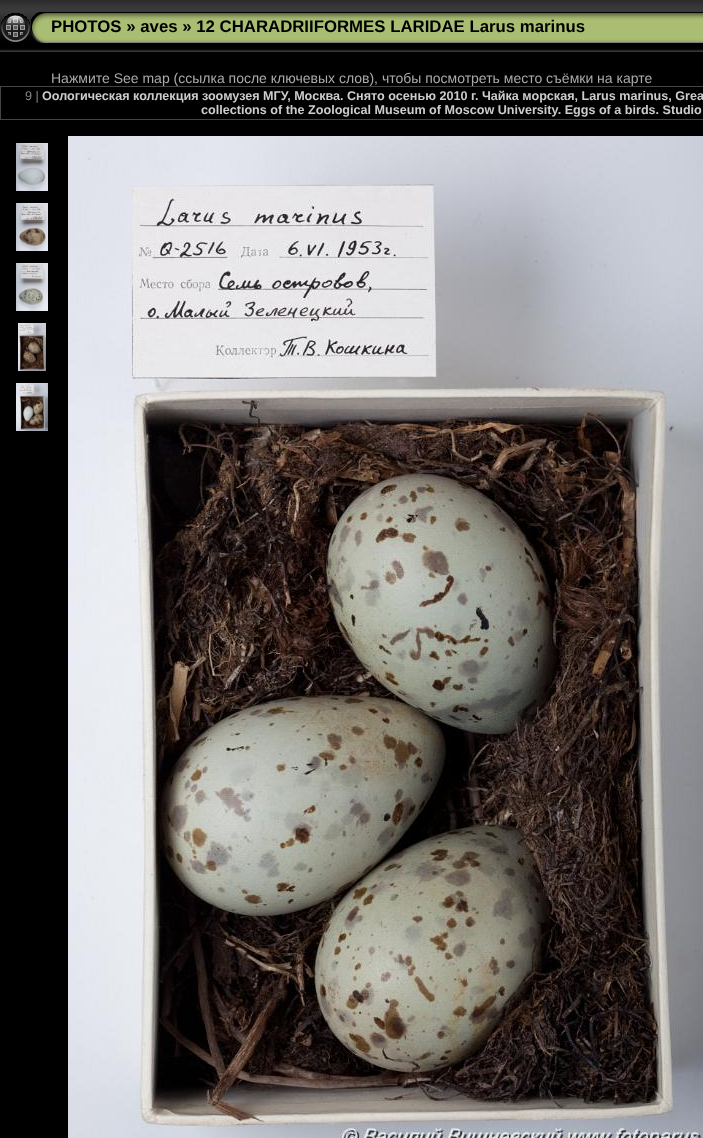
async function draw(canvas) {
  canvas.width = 703;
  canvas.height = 1138;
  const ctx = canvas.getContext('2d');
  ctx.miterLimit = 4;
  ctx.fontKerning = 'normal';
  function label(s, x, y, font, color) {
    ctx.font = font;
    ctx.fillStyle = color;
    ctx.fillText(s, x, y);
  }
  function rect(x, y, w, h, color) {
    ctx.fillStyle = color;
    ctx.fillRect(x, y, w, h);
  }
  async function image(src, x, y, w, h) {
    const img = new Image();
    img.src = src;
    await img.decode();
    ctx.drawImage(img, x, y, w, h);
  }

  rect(0, 0, 703, 1138, '#000');
  await image('assets/img1.png', 0, 0, 703, 52);
  await image('assets/img2.png', 1, 13, 29, 29);
  await image('assets/img3.png', 31, 12, 20, 31);
  await image('assets/img4.png', 51, 12, 652, 31);
  label('PHOTOS » aves » 12 CHARADRIIFORMES LARIDAE Larus marinus', 51, 32, 'bold 16.8px Liberation Sans', '#000');
  label('Нажмите See map (ссылка после ключевых слов), чтобы посмотреть место съёмки на карте', 51, 83, '14px Liberation Sans', '#aaa');
  rect(0, 86, 703, 1, '#444');
  rect(0, 119, 703, 1, '#444');
  rect(0, 86, 1, 34, '#444');
  label('9 |', 25, 100, '12.6px Liberation Sans', '#888');
  label('Оологическая коллекция зоомузея МГУ, Москва. Снято осенью 2010 г. Чайка морская, Larus marinus, Grea', 42, 100, 'bold 12.6px Liberation Sans', '#ccc');
  label('collections of the Zoological Museum of Moscow University. Eggs of a birds. Studio', 201, 114, 'bold 12.6px Liberation Sans', '#ccc');
  await image('assets/img5.png', 16, 143, 32, 48);
  await image('assets/img6.png', 16, 203, 32, 48);
  await image('assets/img7.png', 16, 263, 32, 48);
  await image('assets/img8.png', 18, 323, 28, 48);
  await image('assets/img9.png', 16, 383, 32, 48);
  await image('assets/img10.png', 68, 136, 635, 1002);
}

draw(document.querySelector('canvas'));
